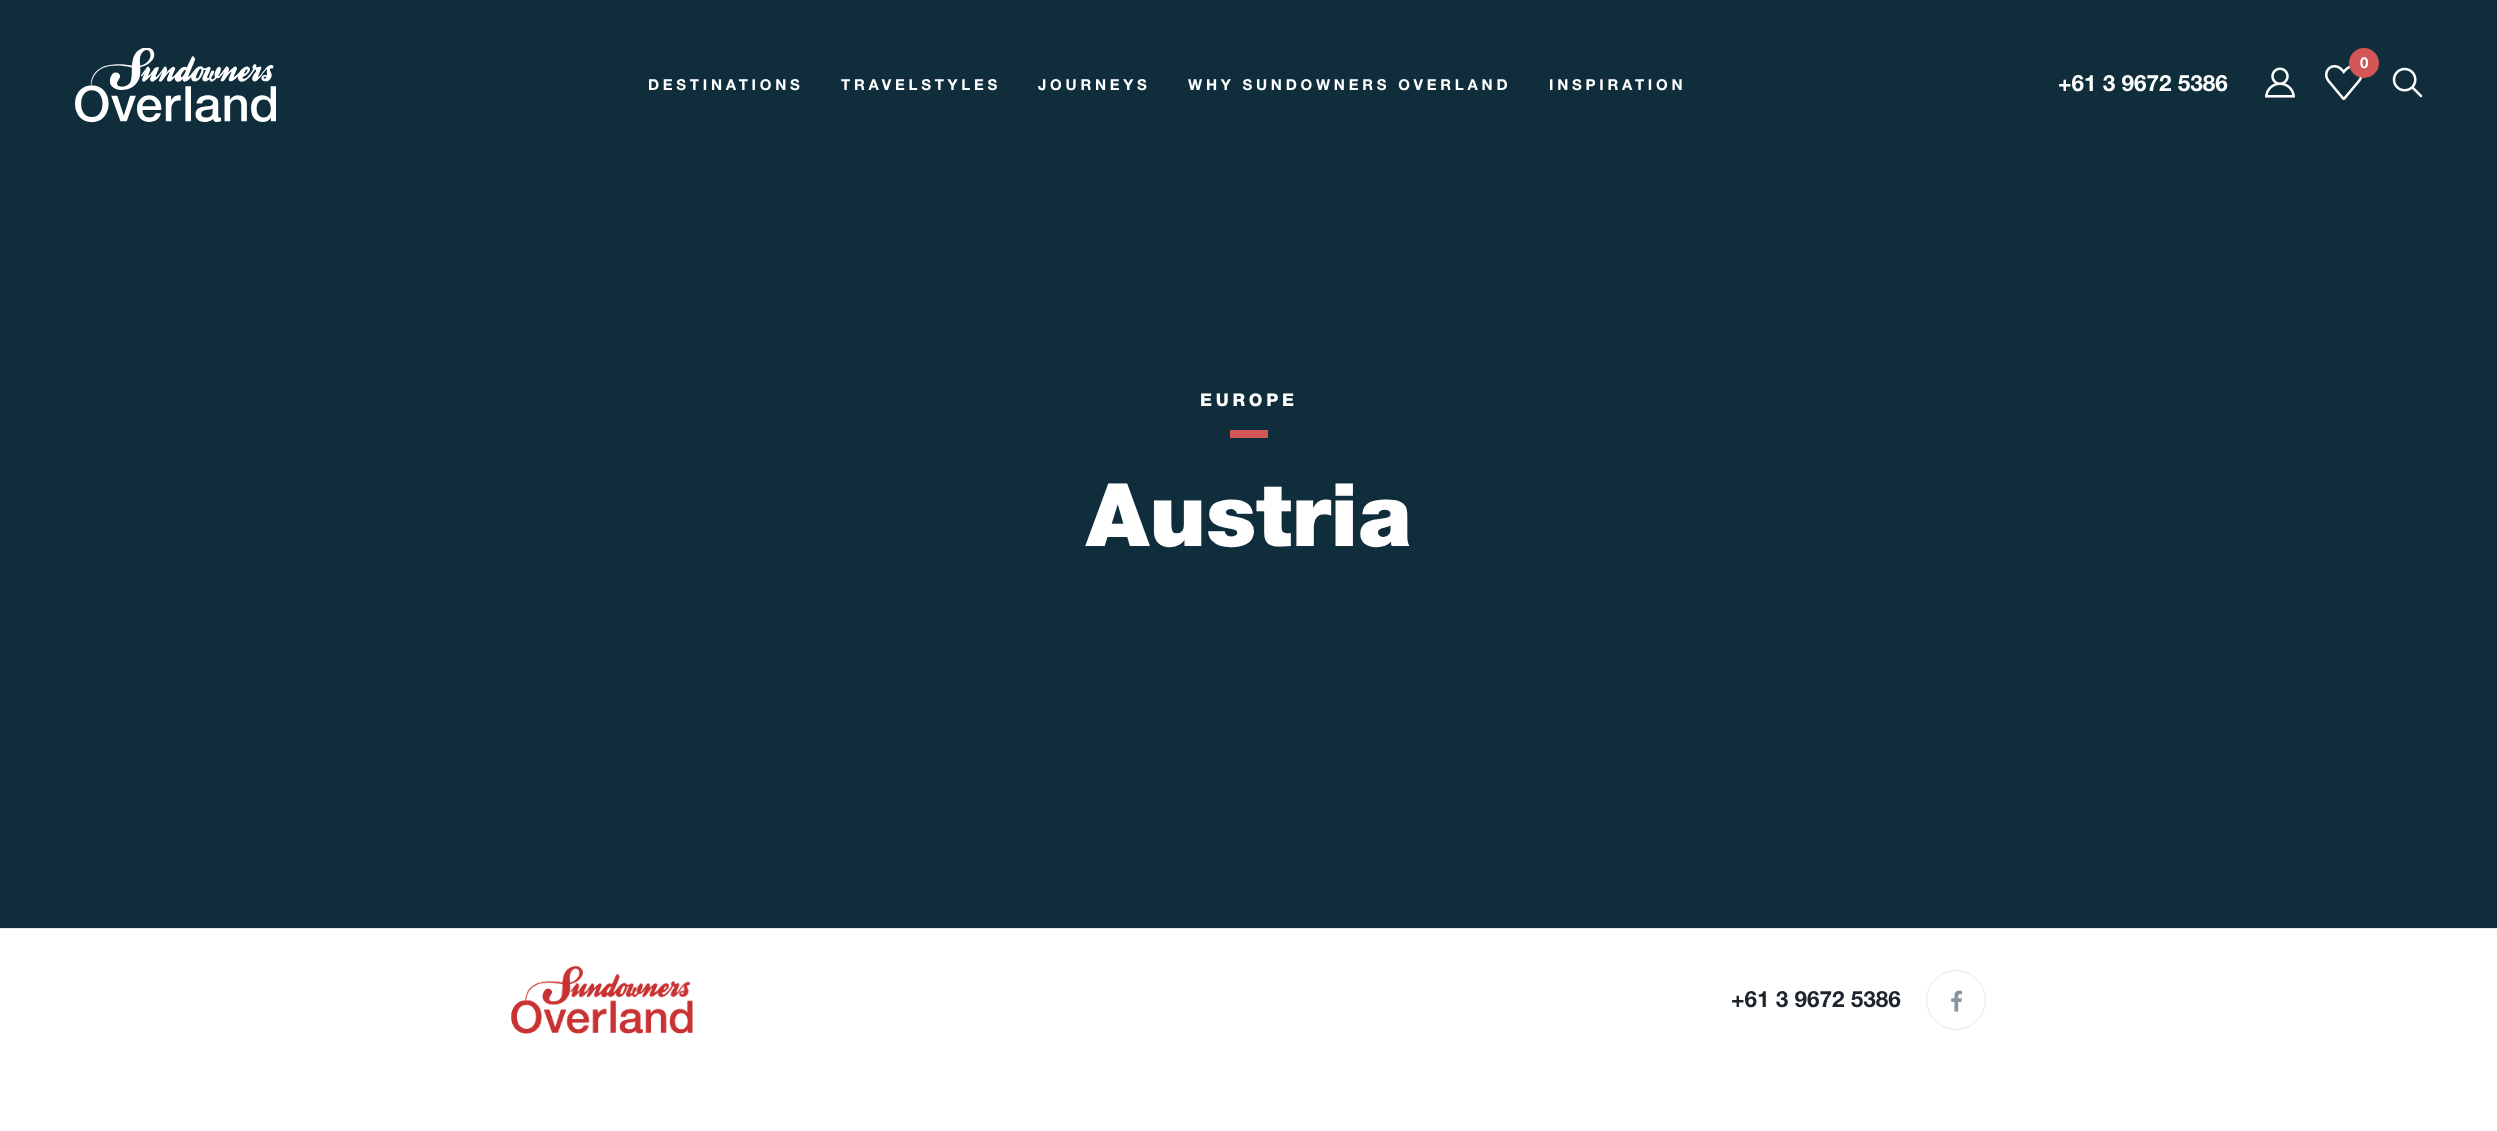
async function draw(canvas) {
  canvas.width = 2497;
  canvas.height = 1131;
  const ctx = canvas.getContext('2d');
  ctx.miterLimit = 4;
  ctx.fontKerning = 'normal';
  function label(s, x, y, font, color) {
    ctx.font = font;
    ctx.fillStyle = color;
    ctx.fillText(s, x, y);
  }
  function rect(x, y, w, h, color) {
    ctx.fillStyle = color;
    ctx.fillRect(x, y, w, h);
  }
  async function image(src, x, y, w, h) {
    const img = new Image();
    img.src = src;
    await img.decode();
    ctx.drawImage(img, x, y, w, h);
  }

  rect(0, 0, 2497, 1131, '#0f2d3b');
  await image('assets/img1.png', 75, 48, 201, 75);
  ctx.letterSpacing = '3.75px';
  label('DESTINATIONS', 648, 90, 'bold 15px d', '#fff');
  label('TRAVELSTYLES', 841, 90, 'bold 15px d', '#fff');
  label('JOURNEYS', 1038, 90, 'bold 15px d', '#fff');
  label('WHY SUNDOWNERS OVERLAND', 1188, 90, 'bold 15px d', '#fff');
  label('INSPIRATION', 1549, 90, 'bold 15px d', '#fff');
  await image('assets/img2.png', 2325, 65, 38, 36);
  ctx.fillStyle = '#d35656';
  ctx.beginPath();
  ctx.arc(2364, 63, 15, 0, 2 * Math.PI);
  ctx.fill();
  ctx.letterSpacing = '0px';
  label('0', 2360, 68, 'bold 15px d', '#fff');
  label('+61 3 9672 5386', 2058, 91, 'bold 22.5px d', '#fff');
  await image('assets/img3.png', 2265, 67, 30, 31);
  await image('assets/img4.png', 2392, 67, 31, 31);
  ctx.letterSpacing = '3.75px';
  label('EUROPE', 1200, 406, '17.5px "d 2"', '#fff');
  rect(1230, 430, 38, 8, '#d35656');
  ctx.letterSpacing = '0px';
  label('Austria', 1086, 546, '87.5px d', '#fff');
  rect(0, 929, 2497, 202, '#fff');
  rect(0, 928, 2497, 1, '#e6e9eb');
  await image('assets/img5.png', 511, 966, 182, 68);
  label('+61 3 9672 5386', 1731, 1007, 'bold 22.5px d', '#1e252c');
  ctx.beginPath();
  ctx.arc(1956, 1000, 29.5, 0, 2 * Math.PI);
  ctx.strokeStyle = '#e6e9eb';
  ctx.stroke();
  await image('assets/img6.png', 1951, 990, 12, 22);
}

draw(document.querySelector('canvas'));
